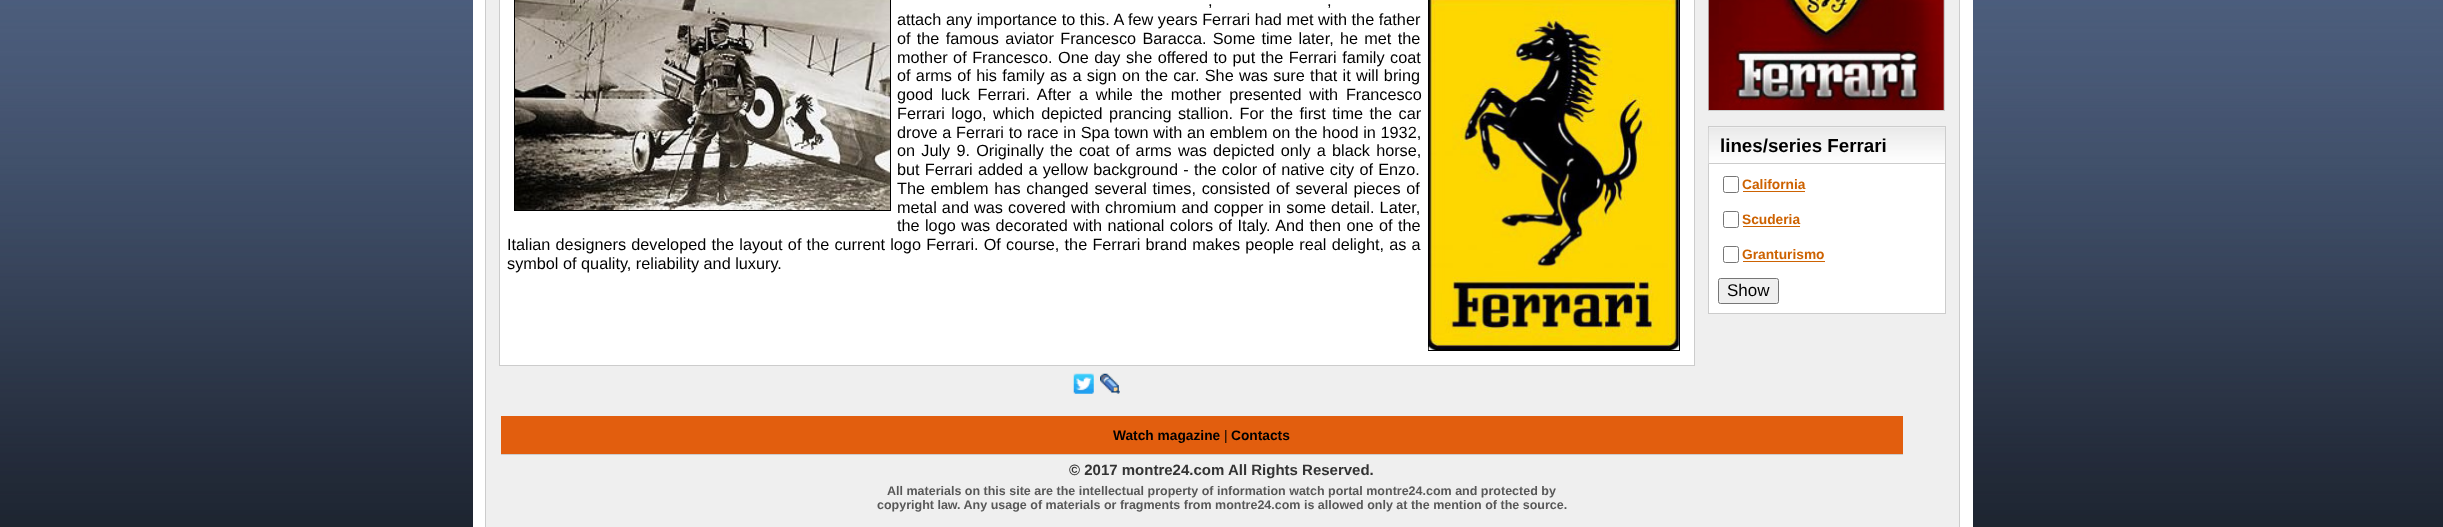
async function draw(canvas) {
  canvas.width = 2443;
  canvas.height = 527;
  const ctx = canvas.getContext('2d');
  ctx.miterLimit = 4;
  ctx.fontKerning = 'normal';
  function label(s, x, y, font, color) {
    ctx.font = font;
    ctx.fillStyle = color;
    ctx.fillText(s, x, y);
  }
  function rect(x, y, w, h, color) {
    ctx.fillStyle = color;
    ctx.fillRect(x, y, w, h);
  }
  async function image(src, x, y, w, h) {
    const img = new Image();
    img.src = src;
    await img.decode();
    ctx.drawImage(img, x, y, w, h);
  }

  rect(0, 0, 2443, 527, '#fff');
  await image('assets/img1.png', 0, 0, 2443, 527);
  rect(473, 0, 12, 527, '#fff');
  rect(486, 0, 1473, 527, '#efefef');
  rect(1959, 0, 1, 527, '#ccc');
  rect(485, 0, 1, 527, '#ccc');
  ctx.strokeStyle = '#ccc';
  ctx.strokeRect(499.5, -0.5, 1195, 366);
  rect(500, 0, 1194, 365, '#fff');
  ctx.strokeStyle = '#000';
  ctx.strokeRect(514.5, -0.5, 376, 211);
  await image('assets/img2.png', 515, 0, 375, 210);
  ctx.wordSpacing = '3px';
  label(',', 1208, 6, '16.25px Liberation Sans', '#000');
  label(',', 1327, 6, '16.25px Liberation Sans', '#000');
  ctx.strokeRect(1428.5, -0.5, 251, 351);
  await image('assets/img3.png', 1428, 0, 251, 350);
  ctx.wordSpacing = '0.1px';
  label('attach any importance to this. A few years Ferrari had met with the father', 897, 25, '16.25px Liberation Sans', '#000');
  ctx.wordSpacing = '1.75px';
  label('of the famous aviator Francesco Baracca. Some time later, he met the', 897, 44, '16.25px Liberation Sans', '#000');
  ctx.wordSpacing = '1px';
  label('mother of Francesco. One day she offered to put the Ferrari family coat', 897, 63, '16.25px Liberation Sans', '#000');
  ctx.wordSpacing = '0.8px';
  label('of arms of his family as a sign on the car. She was sure that it will bring', 897, 81, '16.25px Liberation Sans', '#000');
  ctx.wordSpacing = '3.25px';
  label('good luck Ferrari. After a while the mother presented with Francesco', 897, 100, '16.25px Liberation Sans', '#000');
  ctx.wordSpacing = '2px';
  label('Ferrari logo, which depicted prancing stallion. For the first time the car', 897, 119, '16.25px Liberation Sans', '#000');
  ctx.wordSpacing = '0.2px';
  label('drove a Ferrari to race in Spa town with an emblem on the hood in 1932,', 897, 138, '16.25px Liberation Sans', '#000');
  ctx.wordSpacing = '1.7px';
  label('on July 9. Originally the coat of arms was depicted only a black horse,', 897, 156, '16.25px Liberation Sans', '#000');
  ctx.wordSpacing = '0.75px';
  label('but Ferrari added a yellow background - the color of native city of Enzo.', 897, 175, '16.25px Liberation Sans', '#000');
  ctx.wordSpacing = '1.25px';
  label('The emblem has changed several times, consisted of several pieces of', 897, 194, '16.25px Liberation Sans', '#000');
  ctx.wordSpacing = '0.6px';
  label('metal and was covered with chromium and copper in some detail. Later,', 897, 213, '16.25px Liberation Sans', '#000');
  ctx.wordSpacing = '0.9px';
  label('the logo was decorated with national colors of Italy. And then one of the', 897, 231, '16.25px Liberation Sans', '#000');
  ctx.wordSpacing = '0.7px';
  label('Italian designers developed the layout of the current logo Ferrari. Of course, the Ferrari brand makes people real delight, as a', 507, 250, '16.25px Liberation Sans', '#000');
  ctx.wordSpacing = '0px';
  label('symbol of quality, reliability and luxury.', 507, 269, '16.25px Liberation Sans', '#000');
  await image('assets/img4.png', 1073, 373, 21, 21);
  await image('assets/img5.png', 1100, 373, 20, 21);
  ctx.strokeStyle = '#ccc';
  ctx.strokeRect(1708.5, -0.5, 236, 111);
  await image('assets/img6.png', 1708, 0, 236, 110);
  ctx.strokeRect(1708.5, 126.5, 237, 187);
  await image('assets/img7.png', 1708, 128, 237, 36);
  rect(1709, 163, 236, 1, '#ccc');
  label('lines/series Ferrari', 1720, 152, 'bold 18.75px Liberation Sans', '#000');
  rect(1709, 164, 236, 149, '#fff');
  ctx.beginPath();
  ctx.roundRect(1723.5, 176.5, 15, 16, 2);
  ctx.strokeStyle = '#767676';
  ctx.stroke();
  label('California', 1742, 189, 'bold 13.75px Liberation Sans', '#cd6201');
  rect(1743, 191, 62, 1, '#cd6201');
  ctx.beginPath();
  ctx.roundRect(1723.5, 211.5, 15, 16, 2);
  ctx.stroke();
  label('Scuderia', 1742, 224, 'bold 13.75px Liberation Sans', '#cd6201');
  rect(1743, 226, 57, 1, '#cd6201');
  ctx.beginPath();
  ctx.roundRect(1723.5, 246.5, 15, 16, 2);
  ctx.stroke();
  label('Granturismo', 1742, 259, 'bold 13.75px Liberation Sans', '#cd6201');
  rect(1743, 261, 82, 1, '#cd6201');
  ctx.fillStyle = '#efefef';
  ctx.beginPath();
  ctx.roundRect(1718.5, 278.5, 60, 25, 2);
  ctx.fill();
  ctx.stroke();
  label('Show', 1727, 296, '17px Liberation Sans', '#000');
  rect(501, 416, 1402, 38, '#e25e0e');
  rect(501, 454, 1402, 1, '#ccc');
  label('Watch magazine', 1113, 440, 'bold 13.75px Liberation Sans', '#000');
  label('|', 1224, 440, '13.75px Liberation Sans', '#000');
  label('Contacts', 1231, 440, 'bold 13.75px Liberation Sans', '#000');
  label('© 2017 montre24.com All Rights Reserved.', 1069, 475, 'bold 15px Liberation Sans', '#333');
  label('All materials on this site are the intellectual property of information watch portal montre24.com and protected by', 887, 495, 'bold 12.5px Liberation Sans', '#585858');
  label('copyright law. Any usage of materials or fragments from montre24.com is allowed only at the mention of the source.', 877, 509, 'bold 12.5px Liberation Sans', '#585858');
  rect(1960, 0, 13, 527, '#fff');
}

draw(document.querySelector('canvas'));
